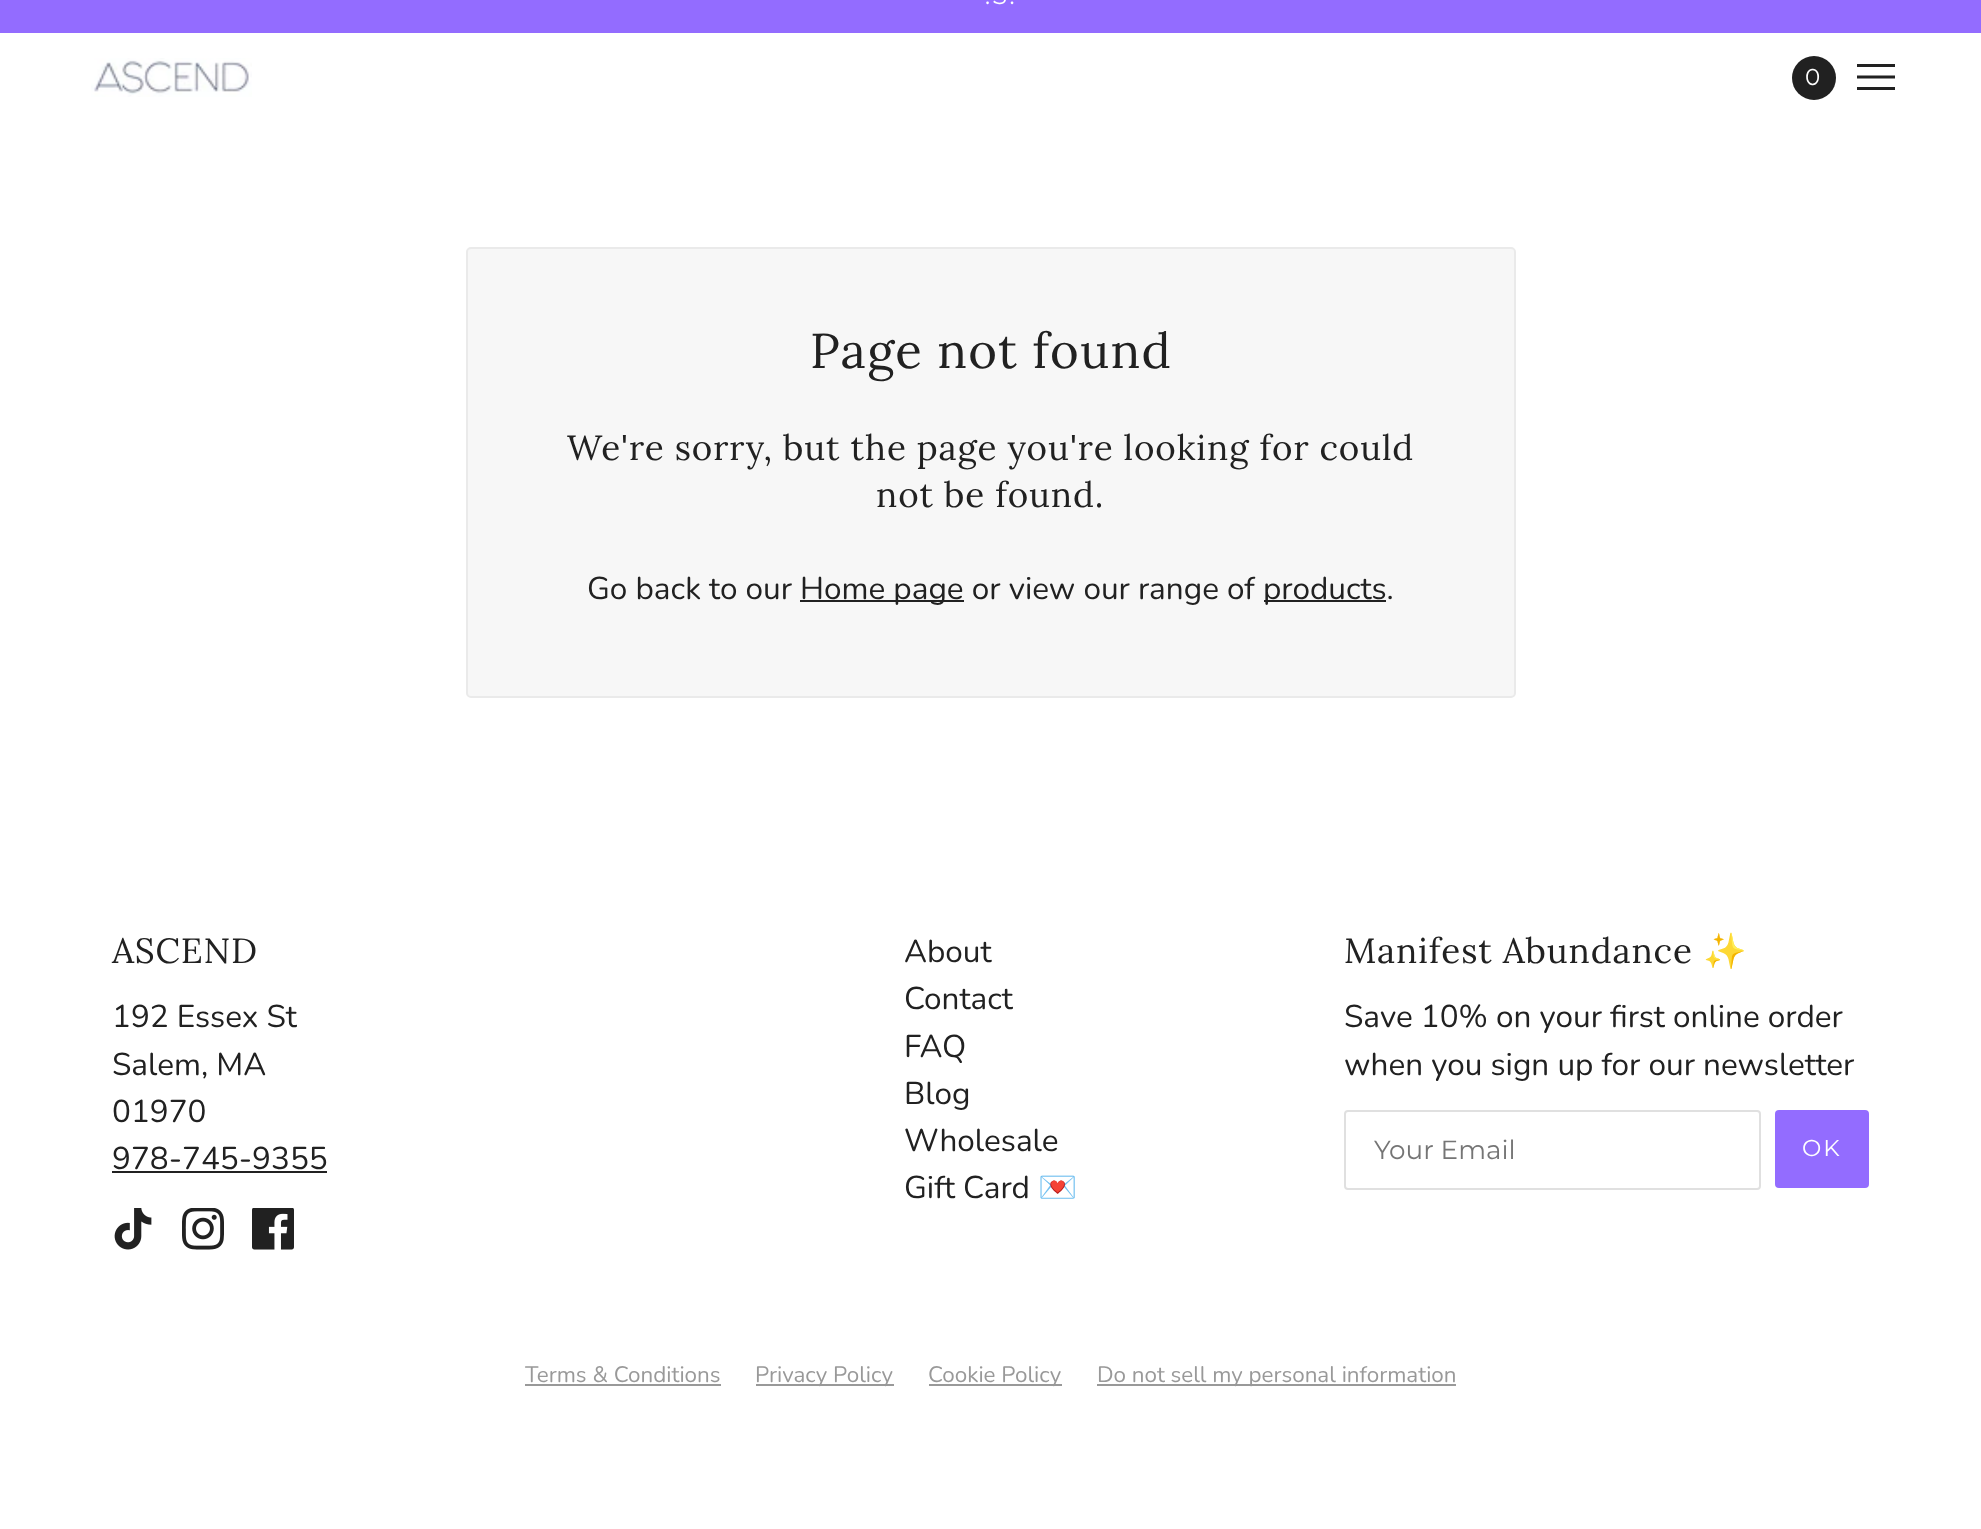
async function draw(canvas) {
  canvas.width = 1981;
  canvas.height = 1529;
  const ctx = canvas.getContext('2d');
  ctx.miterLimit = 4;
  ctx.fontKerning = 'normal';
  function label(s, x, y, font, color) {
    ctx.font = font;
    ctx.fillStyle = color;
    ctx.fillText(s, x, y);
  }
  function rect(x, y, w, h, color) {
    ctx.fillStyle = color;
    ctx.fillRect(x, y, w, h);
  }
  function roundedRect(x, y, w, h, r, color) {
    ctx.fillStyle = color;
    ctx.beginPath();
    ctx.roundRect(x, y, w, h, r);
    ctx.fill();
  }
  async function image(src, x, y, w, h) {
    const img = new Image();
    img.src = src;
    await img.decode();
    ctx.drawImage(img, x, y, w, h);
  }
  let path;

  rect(0, 0, 1981, 1529, '#fff');
  rect(0, 0, 1981, 33, '#936cff');
  ctx.letterSpacing = '2px';
  label('.S.', 985, 4, '100 24px Montserrat', '#fff');
  await image('assets/img1.png', 91, 58, 161, 39);
  ctx.fillStyle = '#212121';
  ctx.beginPath();
  ctx.arc(1814, 78, 22, 0, 2 * Math.PI);
  ctx.fill();
  label('0', 1805, 85, '100 23px Montserrat', '#fff');
  ctx.fillStyle = '#212121';
  path = new Path2D('M1857 67V64H1895V67ZM1857 78.5V75.5H1895V78.5ZM1857 90V87H1895V90Z');
  ctx.fill(path);
  ctx.fillStyle = '#f7f7f7';
  ctx.beginPath();
  ctx.roundRect(467, 248, 1048, 449, 4);
  ctx.fill();
  ctx.strokeStyle = '#eaeaea';
  ctx.lineWidth = 2;
  ctx.stroke();
  ctx.letterSpacing = '1.25px';
  label('Page not found', 810, 368, '49px Lora', '#212121');
  ctx.letterSpacing = '0.88px';
  label('We\'re sorry, but the page you\'re looking for could', 567, 460, '35px Lora', '#212121');
  label('not be found.', 876, 507, '35px Lora', '#212121');
  ctx.letterSpacing = '0px';
  label('Go back to our', 587, 599, '31.5px Nunito', '#212121');
  rect(800, 600, 164, 2, '#212121');
  label('Home page or view our range of', 800, 599, '31.5px Nunito', '#212121');
  rect(1264, 600, 122, 2, '#212121');
  label('products.', 1263, 599, '31.5px Nunito', '#212121');
  ctx.letterSpacing = '0.88px';
  label('ASCEND', 112, 963, '35px Lora', '#212121');
  ctx.letterSpacing = '0px';
  label('192 Essex St', 112, 1027, '31.5px Nunito', '#212121');
  label('Salem, MA', 112, 1075, '31.5px Nunito', '#212121');
  label('01970', 112, 1122, '31.5px Nunito', '#212121');
  label('978-745-9355', 112, 1169, '31.5px Nunito', '#212121');
  rect(112, 1171, 215, 2, '#212121');
  await image('assets/img2.png', 114, 1208, 38, 42);
  await image('assets/img3.png', 182, 1208, 42, 42);
  await image('assets/img4.png', 252, 1208, 42, 42);
  label('About', 904, 962, '31.5px Nunito', '#212121');
  label('Contact', 904, 1009, '31.5px Nunito', '#212121');
  label('FAQ', 904, 1057, '31.5px Nunito', '#212121');
  label('Blog', 904, 1104, '31.5px Nunito', '#212121');
  label('Wholesale', 904, 1151, '31.5px Nunito', '#212121');
  label('Gift Card', 904, 1198, '31.5px Nunito', '#212121');
  label('💌', 1038, 1198, '31.5px Noto Color Emoji', '#212121');
  ctx.letterSpacing = '0.88px';
  label('Manifest Abundance', 1344, 963, '35px Lora', '#212121');
  label('✨', 1703, 963, '35px Noto Color Emoji', '#212121');
  ctx.letterSpacing = '0px';
  label('Save 10% on your first online order', 1344, 1027, '31.5px Nunito', '#212121');
  label('when you sign up for our newsletter', 1344, 1075, '31.5px Nunito', '#212121');
  ctx.beginPath();
  ctx.roundRect(1345, 1111, 415, 78, 3);
  ctx.strokeStyle = '#e0e0e0';
  ctx.stroke();
  label('Your Email', 1374, 1159, '100 26.25px Montserrat', '#757575');
  roundedRect(1775, 1110, 94, 78, 4, '#936cff');
  ctx.letterSpacing = '2px';
  label('OK', 1802, 1156, '100 23px Montserrat', '#fff');
  ctx.letterSpacing = '0px';
  label('Terms & Conditions', 525, 1382, '22.4px Nunito', '#999');
  rect(525, 1384, 196, 2, '#999');
  rect(756, 1384, 138, 2, '#999');
  label('Privacy Policy', 755, 1382, '22.4px Nunito', '#999');
  rect(929, 1384, 133, 2, '#999');
  label('Cookie Policy', 928, 1382, '22.4px Nunito', '#999');
  rect(1097, 1384, 359, 2, '#999');
  label('Do not sell my personal information', 1097, 1382, '22.4px Nunito', '#999');
}

draw(document.querySelector('canvas'));
